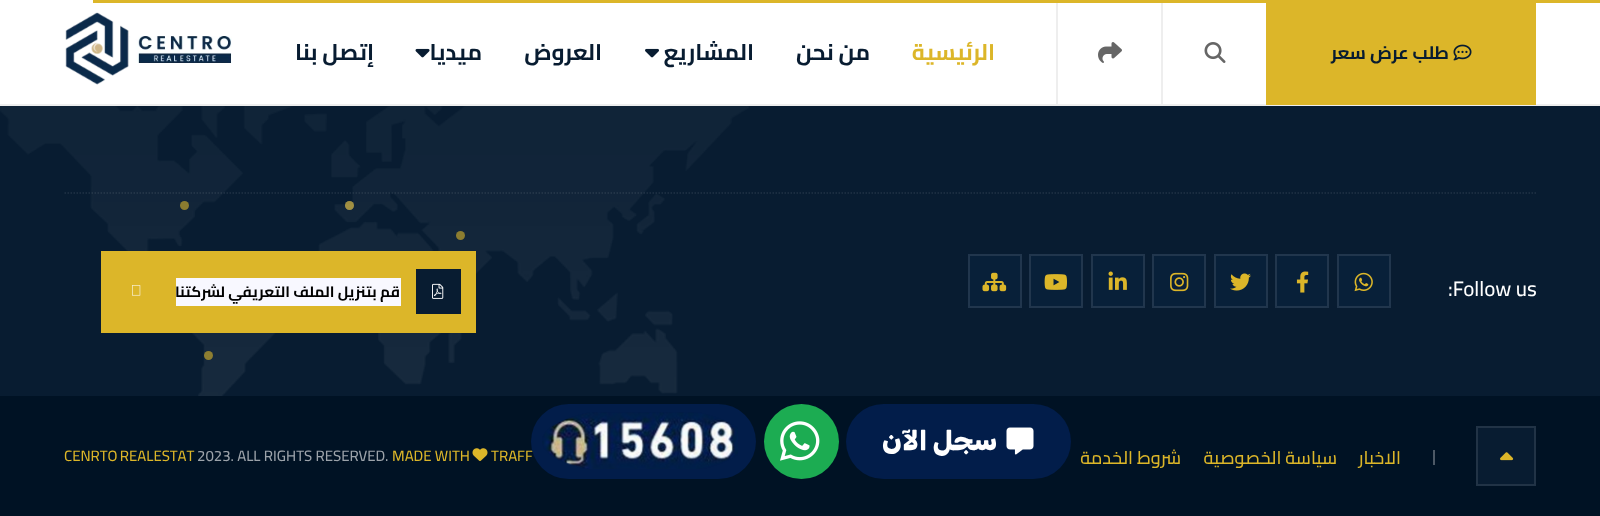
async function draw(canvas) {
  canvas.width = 1600;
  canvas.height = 516;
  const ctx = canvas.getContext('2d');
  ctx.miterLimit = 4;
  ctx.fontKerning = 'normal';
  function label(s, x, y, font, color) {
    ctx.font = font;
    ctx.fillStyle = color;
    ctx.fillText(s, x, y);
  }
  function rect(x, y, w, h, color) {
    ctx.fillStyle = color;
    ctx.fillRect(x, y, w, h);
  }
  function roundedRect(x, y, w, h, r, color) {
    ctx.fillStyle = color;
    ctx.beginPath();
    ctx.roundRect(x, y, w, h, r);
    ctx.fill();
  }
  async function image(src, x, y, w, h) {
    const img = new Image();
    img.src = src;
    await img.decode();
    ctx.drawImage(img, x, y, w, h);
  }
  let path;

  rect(0, 0, 1600, 516, '#081c31');
  rect(0, 0, 1600, 104, '#fff');
  rect(0, 104, 1600, 2, '#eee');
  rect(1161, 0, 2, 105, '#eee');
  rect(1056, 0, 2, 105, '#eee');
  rect(93, 0, 1507, 3, '#dcb629');
  rect(1266, 3, 270, 102, '#dcb629');
  await image('assets/img1.png', 1453, 44, 19, 17);
  ctx.direction = 'rtl';
  label('طلب عرض سعر', 1449, 59, 'bold 18px Cairo', '#081c31');
  await image('assets/img2.png', 1204, 42, 22, 21);
  await image('assets/img3.png', 1098, 42, 24, 21);
  label('الرئيسية', 995, 60, 'bold 22.5px Cairo', '#dcb629');
  label('من نحن', 870, 60, 'bold 22.5px Cairo', '#081c31');
  label('المشاريع', 754, 60, 'bold 22.5px Cairo', '#081c31');
  await image('assets/img4.png', 645, 48, 14, 10);
  label('العروض', 602, 60, 'bold 22.5px Cairo', '#081c31');
  label('ميديا', 482, 60, 'bold 22.5px Cairo', '#081c31');
  await image('assets/img5.png', 415, 48, 15, 10);
  label('إتصل بنا', 374, 60, 'bold 22.5px Cairo', '#081c31');
  await image('assets/img6.png', 65, 12, 167, 73);
  await image('assets/img7.png', 0, 106, 749, 290);
  ctx.fillStyle = '#ffffff3d';
  ctx.beginPath();
  ctx.arc(349.5, 205.5, 4.5, 0, 2 * Math.PI);
  ctx.fill();
  ctx.fillStyle = '#dcb62999';
  ctx.beginPath();
  ctx.arc(349.5, 205.5, 4.5, 0, 2 * Math.PI);
  ctx.fill();
  ctx.fillStyle = '#8b7c30';
  ctx.beginPath();
  ctx.arc(184.5, 205.5, 4.5, 0, 2 * Math.PI);
  ctx.fill();
  ctx.fillStyle = '#8c7d30';
  ctx.beginPath();
  ctx.arc(460.5, 235.5, 4.5, 0, 2 * Math.PI);
  ctx.fill();
  ctx.fillStyle = '#8d7e31';
  ctx.beginPath();
  ctx.arc(208.5, 355.5, 4.5, 0, 2 * Math.PI);
  ctx.fill();
  path = new Path2D('M64.5 193H1536');
  ctx.strokeStyle = '#ffffff1a';
  ctx.lineWidth = 1.5;
  ctx.setLineDash([1.5, 1.5]);
  ctx.stroke(path);
  ctx.direction = 'ltr';
  label(':Follow us', 1448, 296, '500 21px Cairo', '#fff');
  ctx.fillStyle = '#082039';
  ctx.beginPath();
  ctx.rect(1338, 255, 52, 52);
  ctx.fill();
  ctx.strokeStyle = '#21364d';
  ctx.lineWidth = 2;
  ctx.setLineDash([]);
  ctx.stroke();
  await image('assets/img8.png', 1354, 272, 19, 20);
  ctx.beginPath();
  ctx.rect(1276, 255, 52, 52);
  ctx.fill();
  ctx.stroke();
  await image('assets/img9.png', 1296, 271, 13, 22);
  ctx.beginPath();
  ctx.rect(1215, 255, 52, 52);
  ctx.fill();
  ctx.stroke();
  await image('assets/img10.png', 1230, 273, 21, 18);
  ctx.beginPath();
  ctx.rect(1153, 255, 52, 52);
  ctx.fill();
  ctx.stroke();
  await image('assets/img11.png', 1170, 272, 19, 20);
  ctx.beginPath();
  ctx.rect(1092, 255, 52, 52);
  ctx.fill();
  ctx.stroke();
  await image('assets/img12.png', 1108, 271, 19, 19);
  ctx.beginPath();
  ctx.rect(1030, 255, 52, 52);
  ctx.fill();
  ctx.stroke();
  await image('assets/img13.png', 1044, 274, 23, 16);
  ctx.beginPath();
  ctx.rect(969, 255, 52, 52);
  ctx.fill();
  ctx.stroke();
  await image('assets/img14.png', 982, 272, 25, 20);
  rect(101, 251, 375, 82, '#dcb629');
  rect(416, 269, 45, 45, '#081c31');
  await image('assets/img15.png', 432, 283, 12, 16);
  rect(176, 278, 225, 28, '#f8f8ff');
  ctx.direction = 'rtl';
  label('قم بتنزيل الملف التعريفي لشركتنا', 400, 297, 'bold 15px Cairo', '#000');
  await image('assets/img16.png', 132, 285, 9, 11);
  rect(0, 396, 1600, 120, '#001224');
  ctx.fillStyle = '#081c31';
  ctx.beginPath();
  ctx.rect(1477, 427, 58, 58);
  ctx.fill();
  ctx.strokeStyle = '#213346';
  ctx.stroke();
  await image('assets/img17.png', 1500, 452, 14, 9);
  rect(1433, 450, 2, 15, '#4d5966');
  label('الاخبار', 1401, 464, '500 18px Cairo', '#dcb629');
  label('سياسة الخصوصية', 1337, 464, '500 18px Cairo', '#dcb629');
  label('شروط الخدمة', 1181, 464, '500 18px Cairo', '#dcb629');
  ctx.direction = 'ltr';
  label('TRAFF', 491, 461, '500 15px Cairo', '#dcb629');
  await image('assets/img18.png', 472, 448, 16, 13);
  label('MADE WITH', 392, 461, '500 15px Cairo', '#dcb629');
  label('2023. ALL RIGHTS RESERVED.', 197, 461, '500 15px Cairo', '#9ca3aa');
  ctx.wordSpacing = '-1px';
  label('CENRTO REALESTAT', 64, 461, '500 15px Cairo', '#dcb629');
  roundedRect(846, 404, 225, 75, 37.5, '#021d4a');
  await image('assets/img19.png', 1006, 427, 28, 28);
  ctx.wordSpacing = '0px';
  ctx.direction = 'rtl';
  label('سجل الآن', 997, 450, '800 27px Rubik', '#fff');
  ctx.fillStyle = '#1cac52';
  ctx.beginPath();
  ctx.arc(801.5, 441.5, 37.5, 0, 2 * Math.PI);
  ctx.fill();
  await image('assets/img20.png', 780, 421, 40, 40);
  roundedRect(531, 404, 225, 75, 37.5, '#021d4a');
  await image('assets/img21.png', 542, 412, 196, 57);
}

draw(document.querySelector('canvas'));
